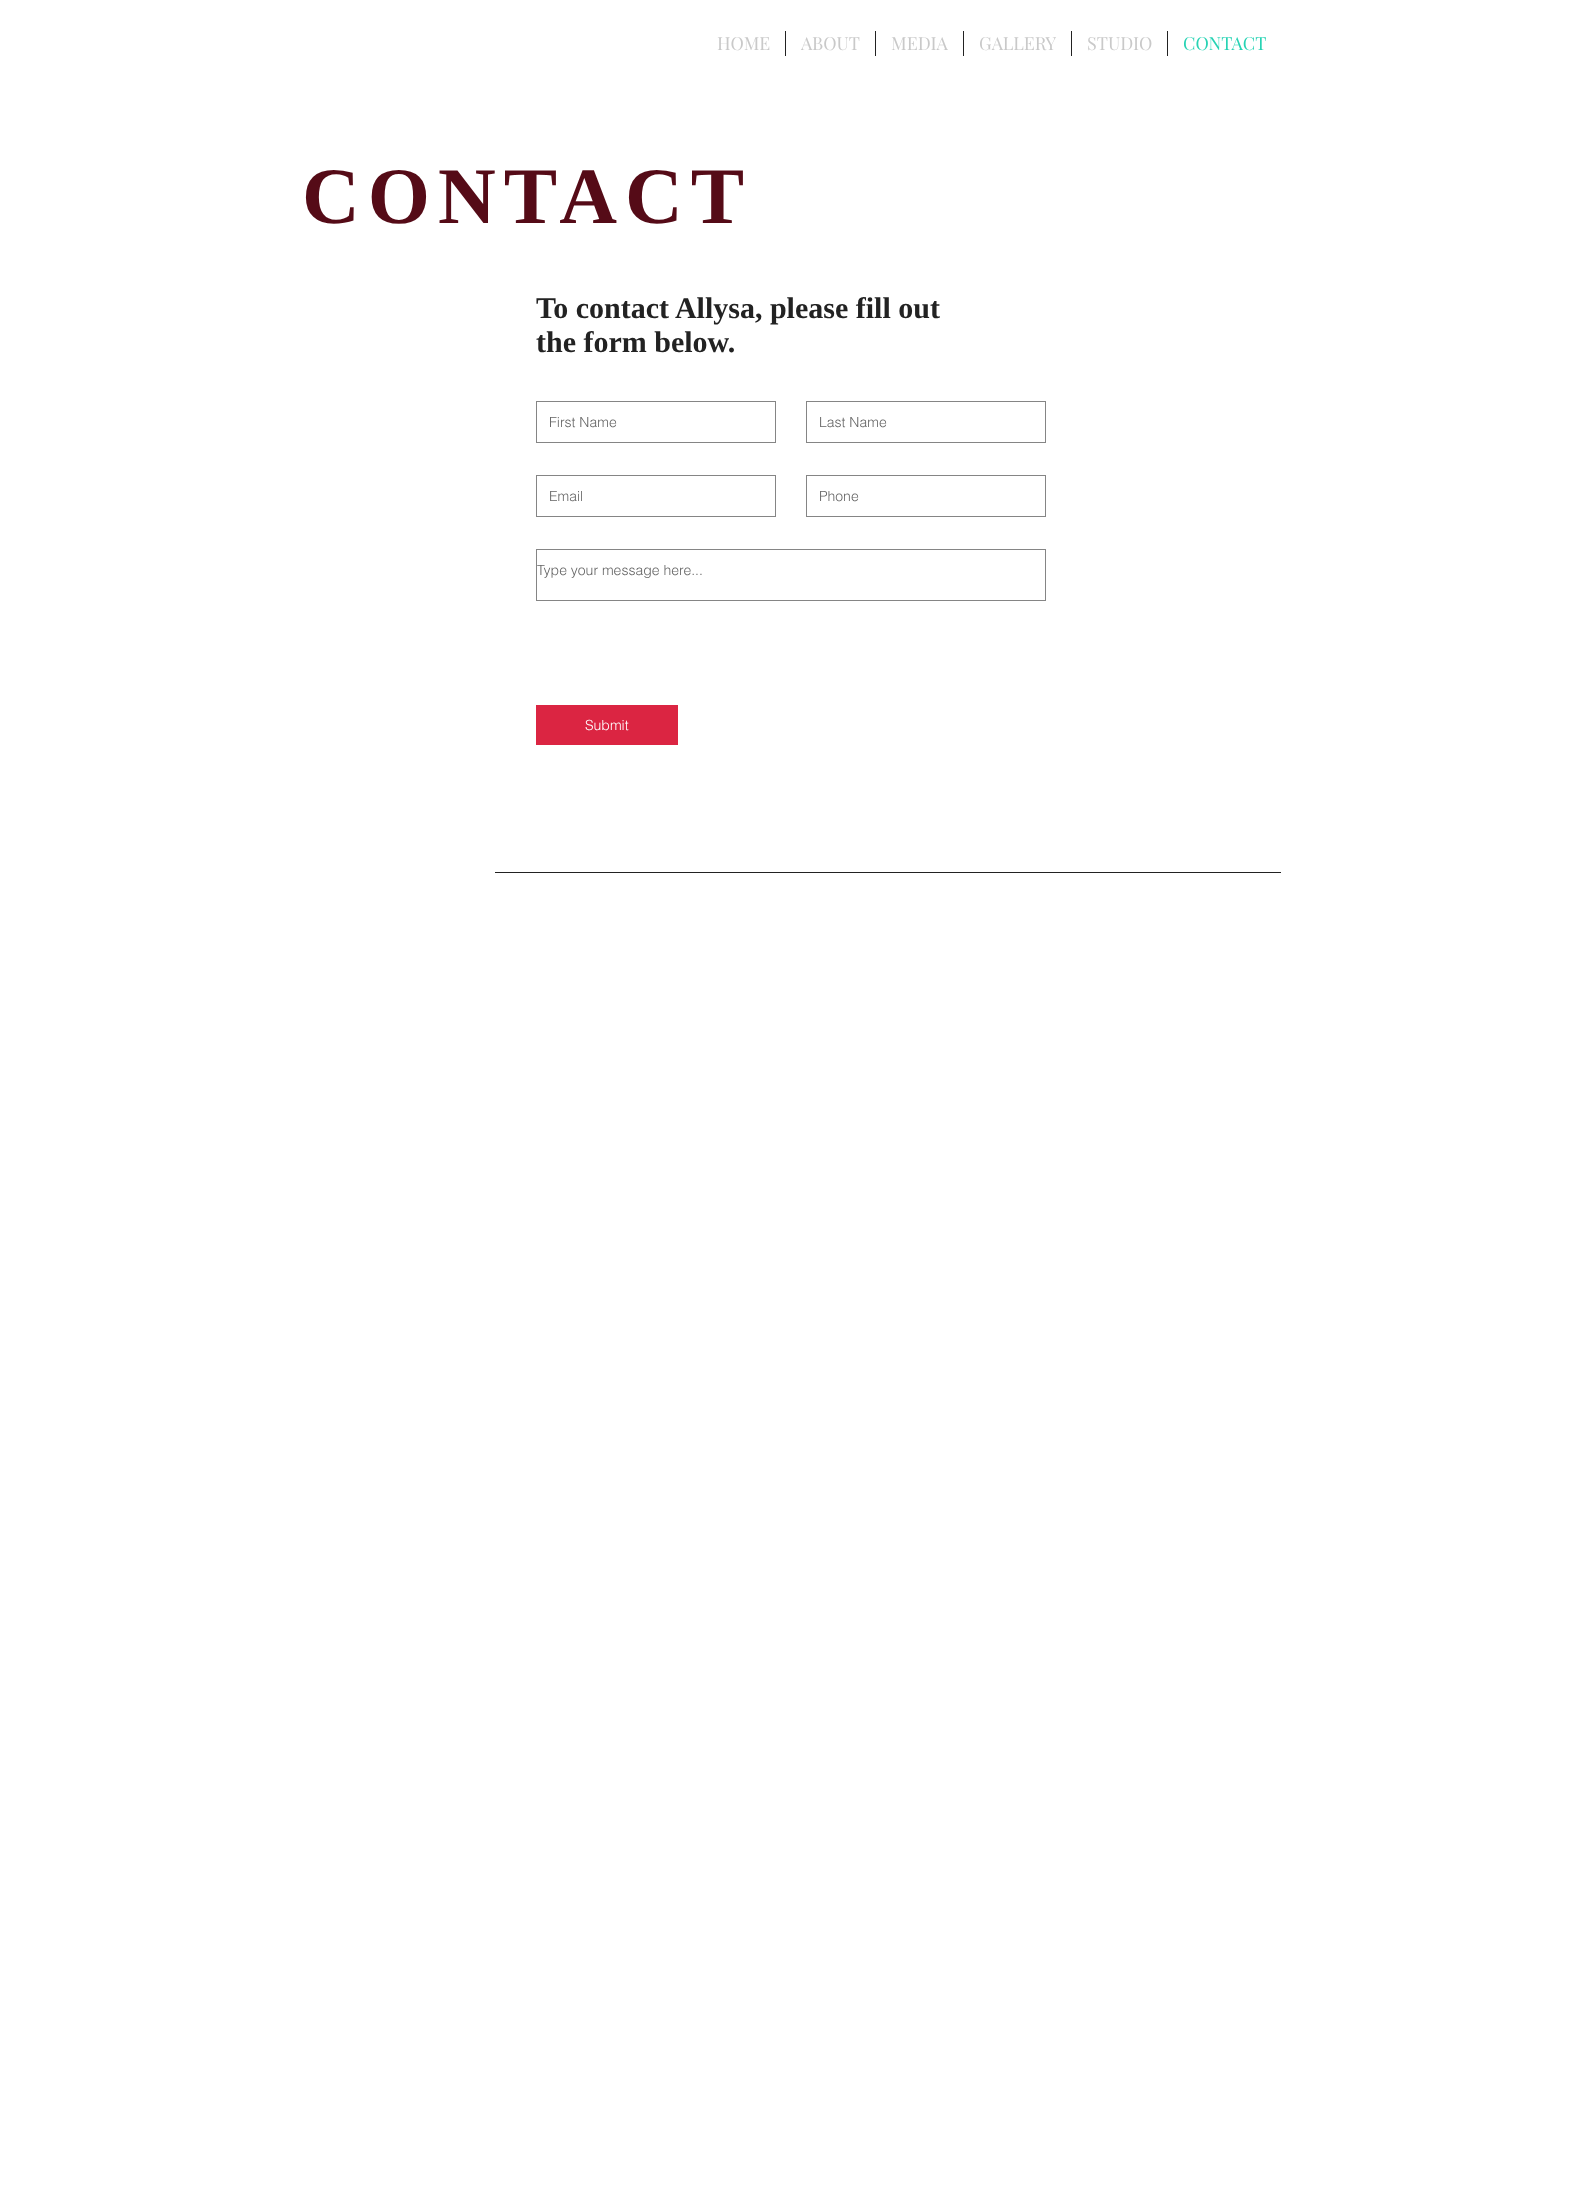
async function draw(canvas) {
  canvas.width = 1582;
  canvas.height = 2204;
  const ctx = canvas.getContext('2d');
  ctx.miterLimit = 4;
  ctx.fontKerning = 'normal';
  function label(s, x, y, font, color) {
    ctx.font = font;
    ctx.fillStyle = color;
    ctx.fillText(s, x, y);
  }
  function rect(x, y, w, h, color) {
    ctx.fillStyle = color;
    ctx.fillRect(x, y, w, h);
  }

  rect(0, 0, 1582, 2204, '#fff');
  label('HOME', 717, 50, '18px Playfair Display', '#c9c9c9');
  rect(785, 31, 1, 25, '#222');
  label('ABOUT', 801, 50, '18px Playfair Display', '#c9c9c9');
  rect(875, 31, 1, 25, '#222');
  label('MEDIA', 891, 50, '18px Playfair Display', '#c9c9c9');
  rect(963, 31, 1, 25, '#222');
  label('GALLERY', 979, 50, '18px Playfair Display', '#c9c9c9');
  rect(1071, 31, 1, 25, '#222');
  label('STUDIO', 1087, 50, '18px Playfair Display', '#c9c9c9');
  rect(1167, 31, 1, 25, '#222');
  label('CONTACT', 1183, 50, '18px Playfair Display', '#27d3b4');
  ctx.letterSpacing = '8px';
  label('CONTACT', 302, 223, 'bold 80px Liberation Serif', '#550b17');
  ctx.letterSpacing = '0px';
  label('To contact Allysa, please fill out', 536, 318, 'bold 30px Liberation Serif', '#222');
  label('the form below.', 536, 352, 'bold 30px Liberation Serif', '#222');
  ctx.strokeStyle = '#858585';
  ctx.strokeRect(536.5, 401.5, 239, 41);
  label('First Name', 549, 427, '300 14px helvetica', '#656565');
  ctx.strokeRect(806.5, 401.5, 239, 41);
  label('Last Name', 819, 427, '300 14px helvetica', '#656565');
  ctx.strokeRect(536.5, 475.5, 239, 41);
  label('Email', 549, 501, '300 14px helvetica', '#656565');
  ctx.strokeRect(806.5, 475.5, 239, 41);
  label('Phone', 819, 501, '300 14px helvetica', '#656565');
  ctx.strokeRect(536.5, 549.5, 509, 51);
  label('Type your message here...', 537, 575, '300 14px helvetica', '#656565');
  rect(536, 705, 142, 40, '#db2542');
  label('Submit', 585, 730, '300 14px helvetica', '#fff');
  rect(495, 872, 786, 1, '#222');
}

draw(document.querySelector('canvas'));
